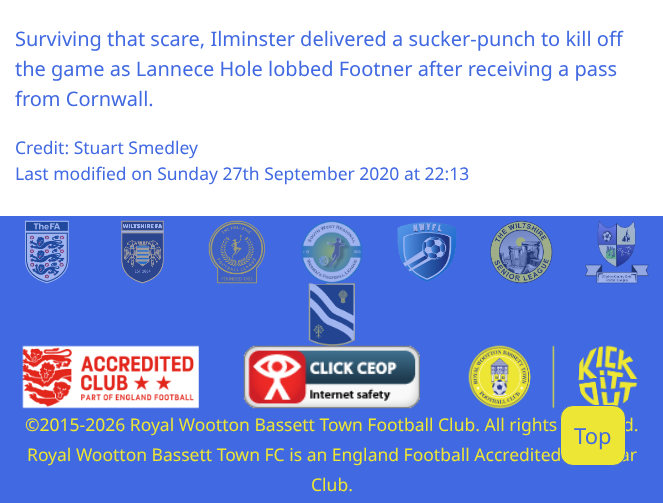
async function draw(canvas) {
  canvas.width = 663;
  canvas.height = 503;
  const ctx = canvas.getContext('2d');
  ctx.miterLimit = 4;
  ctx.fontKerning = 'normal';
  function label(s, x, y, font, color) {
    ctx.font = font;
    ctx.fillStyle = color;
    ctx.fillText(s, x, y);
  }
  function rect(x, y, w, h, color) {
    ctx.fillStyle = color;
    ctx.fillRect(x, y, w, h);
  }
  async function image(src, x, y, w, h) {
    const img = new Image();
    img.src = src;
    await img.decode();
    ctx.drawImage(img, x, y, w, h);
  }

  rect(0, 0, 663, 503, '#fff');
  label('Surviving that scare, Ilminster delivered a sucker-punch to kill off', 15, 46, '20px Noto Sans', '#4169e1');
  label('the game as Lannece Hole lobbed Footner after receiving a pass', 15, 76, '20px Noto Sans', '#4169e1');
  label('from Cornwall.', 15, 106, '20px Noto Sans', '#4169e1');
  label('Credit: Stuart Smedley', 15, 154, '17.5px Noto Sans', '#4169e1');
  label('Last modified on Sunday 27th September 2020 at 22:13', 15, 180, '17.5px Noto Sans', '#4169e1');
  rect(0, 216, 663, 287, '#4169e1');
  await image('assets/img1.png', 25, 220, 44, 64);
  await image('assets/img2.png', 121, 220, 43, 64);
  await image('assets/img3.png', 208, 220, 57, 64);
  await image('assets/img4.png', 301, 220, 62, 64);
  await image('assets/img5.png', 397, 222, 60, 60);
  await image('assets/img6.png', 490, 220, 63, 64);
  await image('assets/img7.png', 585, 220, 64, 64);
  await image('assets/img10.png', 243, 345, 177, 64);
  await image('assets/img8.png', 308, 283, 47, 63);
  await image('assets/img9.png', 22, 345, 177, 64);
  await image('assets/img11.png', 468, 345, 170, 64);
  label('©2015-2026 Royal Wootton Bassett Town Football Club. All rights', 25, 431, '17.5px Noto Sans', '#ede634');
  label('d.', 623, 431, '17.5px Noto Sans', '#ede634');
  label('Royal Wootton Bassett Town FC is an England Football Accredited', 27, 461, '17.5px Noto Sans', '#ede634');
  label('ar', 620, 461, '17.5px Noto Sans', '#ede634');
  label('Club.', 311, 491, '17.5px Noto Sans', '#ede634');
  ctx.beginPath();
  ctx.roundRect(560.5, 405.5, 65, 60, 12.5);
  ctx.fill();
  ctx.strokeStyle = '#4169e1';
  ctx.stroke();
  label('Top', 574, 444, '22px Noto Sans', '#4169e1');
}

draw(document.querySelector('canvas'));
